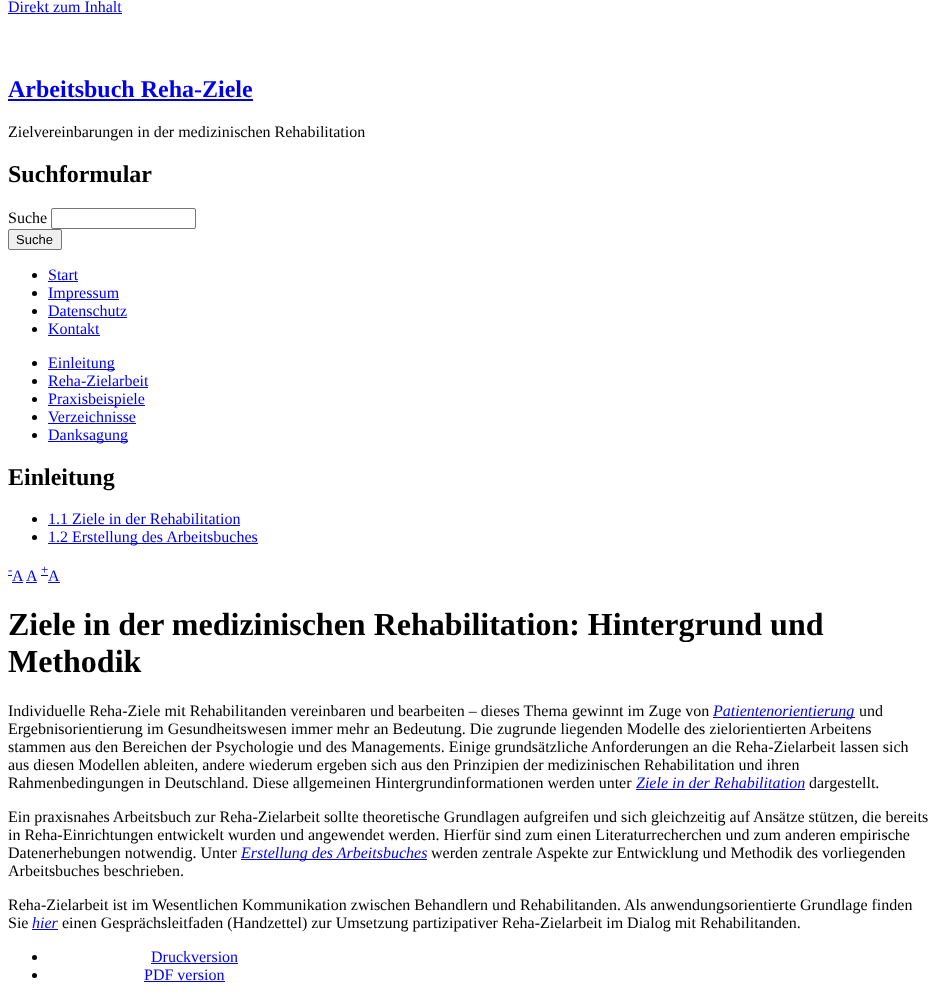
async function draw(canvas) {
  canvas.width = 940;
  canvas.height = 997;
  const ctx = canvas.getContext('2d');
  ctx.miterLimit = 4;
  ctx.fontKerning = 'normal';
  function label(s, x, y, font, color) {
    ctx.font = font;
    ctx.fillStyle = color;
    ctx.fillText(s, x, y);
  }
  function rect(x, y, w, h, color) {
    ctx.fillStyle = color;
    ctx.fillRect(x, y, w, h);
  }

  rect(0, 0, 940, 997, '#fff');
  label('Direkt zum Inhalt', 8, 12, '16px Liberation Serif', '#00e');
  rect(8, 13, 114, 1, '#00e');
  label('Arbeitsbuch Reha-Ziele', 8, 97, 'bold 24px Liberation Serif', '#00e');
  rect(8, 99, 245, 2, '#00e');
  label('Zielvereinbarungen in der medizinischen Rehabilitation', 8, 137, '16px Liberation Serif', '#000');
  label('Suchformular', 8, 182, 'bold 24px Liberation Serif', '#000');
  label('Suche', 8, 223, '16px Liberation Serif', '#000');
  ctx.beginPath();
  ctx.roundRect(51.5, 208.5, 144, 20, 1.5);
  ctx.strokeStyle = '#767676';
  ctx.stroke();
  ctx.fillStyle = '#efefef';
  ctx.beginPath();
  ctx.roundRect(8.5, 229.5, 53, 20, 1.5);
  ctx.fill();
  ctx.stroke();
  label('Suche', 16, 244, '13px Liberation Sans', '#000');
  ctx.beginPath();
  ctx.arc(34.5, 275.5, 2.5, 0, 2 * Math.PI);
  ctx.fill();
  label('Start', 48, 280, '16px Liberation Serif', '#00e');
  rect(48, 281, 30, 1, '#00e');
  ctx.fillStyle = '#000';
  ctx.beginPath();
  ctx.arc(34.5, 293.5, 2.5, 0, 2 * Math.PI);
  ctx.fill();
  rect(48, 299, 71, 1, '#00e');
  label('Impressum', 48, 298, '16px Liberation Serif', '#00e');
  ctx.fillStyle = '#000';
  ctx.beginPath();
  ctx.arc(34.5, 311.5, 2.5, 0, 2 * Math.PI);
  ctx.fill();
  label('Datenschutz', 48, 316, '16px Liberation Serif', '#00e');
  rect(48, 317, 79, 1, '#00e');
  ctx.fillStyle = '#000';
  ctx.beginPath();
  ctx.arc(34.5, 329.5, 2.5, 0, 2 * Math.PI);
  ctx.fill();
  label('Kontakt', 48, 334, '16px Liberation Serif', '#00e');
  rect(48, 335, 52, 1, '#00e');
  ctx.fillStyle = '#000';
  ctx.beginPath();
  ctx.arc(34.5, 363.5, 2.5, 0, 2 * Math.PI);
  ctx.fill();
  rect(48, 369, 67, 1, '#00e');
  label('Einleitung', 48, 368, '16px Liberation Serif', '#00e');
  ctx.fillStyle = '#000';
  ctx.beginPath();
  ctx.arc(34.5, 381.5, 2.5, 0, 2 * Math.PI);
  ctx.fill();
  label('Reha-Zielarbeit', 48, 386, '16px Liberation Serif', '#00e');
  rect(48, 387, 100, 1, '#00e');
  ctx.fillStyle = '#000';
  ctx.beginPath();
  ctx.arc(34.5, 399.5, 2.5, 0, 2 * Math.PI);
  ctx.fill();
  rect(48, 405, 97, 1, '#00e');
  label('Praxisbeispiele', 48, 404, '16px Liberation Serif', '#00e');
  ctx.fillStyle = '#000';
  ctx.beginPath();
  ctx.arc(34.5, 417.5, 2.5, 0, 2 * Math.PI);
  ctx.fill();
  label('Verzeichnisse', 48, 422, '16px Liberation Serif', '#00e');
  rect(48, 423, 88, 1, '#00e');
  ctx.fillStyle = '#000';
  ctx.beginPath();
  ctx.arc(34.5, 435.5, 2.5, 0, 2 * Math.PI);
  ctx.fill();
  rect(48, 441, 80, 1, '#00e');
  label('Danksagung', 48, 440, '16px Liberation Serif', '#00e');
  label('Einleitung', 8, 485, 'bold 24px Liberation Serif', '#000');
  ctx.beginPath();
  ctx.arc(34.5, 519.5, 2.5, 0, 2 * Math.PI);
  ctx.fill();
  label('1.1 Ziele in der Rehabilitation', 48, 524, '16px Liberation Serif', '#00e');
  rect(48, 525, 192, 1, '#00e');
  ctx.fillStyle = '#000';
  ctx.beginPath();
  ctx.arc(34.5, 537.5, 2.5, 0, 2 * Math.PI);
  ctx.fill();
  rect(48, 543, 210, 1, '#00e');
  label('1.2 Erstellung des Arbeitsbuches', 48, 542, '16px Liberation Serif', '#00e');
  label('-', 8, 574, '13px Liberation Serif', '#00e');
  label('A', 12, 581, '16px Liberation Serif', '#00e');
  rect(8, 575, 4, 1, '#00e');
  rect(12, 582, 11, 1, '#00e');
  label('A', 26, 581, '16px Liberation Serif', '#00e');
  rect(26, 582, 11, 1, '#00e');
  label('+', 41, 574, '13px Liberation Serif', '#00e');
  label('A', 48, 581, '16px Liberation Serif', '#00e');
  rect(41, 575, 7, 1, '#00e');
  rect(48, 582, 12, 1, '#00e');
  label('Ziele in der medizinischen Rehabilitation: Hintergrund und', 8, 635, 'bold 32px Liberation Serif', '#000');
  label('Methodik', 8, 672, 'bold 32px Liberation Serif', '#000');
  label('Individuelle Reha-Ziele mit Rehabilitanden vereinbaren und bearbeiten – dieses Thema gewinnt im Zuge von', 8, 716, '16px Liberation Serif', '#000');
  rect(713, 717, 142, 1, '#00e');
  label('Patientenorientierung', 713, 716, 'italic 16px Liberation Serif', '#00e');
  label('und', 859, 716, '16px Liberation Serif', '#000');
  label('Ergebnisorientierung im Gesundheitswesen immer mehr an Bedeutung. Die zugrunde liegenden Modelle des zielorientierten Arbeitens', 8, 734, '16px Liberation Serif', '#000');
  label('stammen aus den Bereichen der Psychologie und des Managements. Einige grundsätzliche Anforderungen an die Reha-Zielarbeit lassen sich', 8, 752, '16px Liberation Serif', '#000');
  label('aus diesen Modellen ableiten, andere wiederum ergeben sich aus den Prinzipien der medizinischen Rehabilitation und ihren', 8, 770, '16px Liberation Serif', '#000');
  label('Rahmenbedingungen in Deutschland. Diese allgemeinen Hintergrundinformationen werden unter', 8, 788, '16px Liberation Serif', '#000');
  label('Ziele in der Rehabilitation', 636, 788, 'italic 16px Liberation Serif', '#00e');
  rect(636, 789, 169, 1, '#00e');
  label('dargestellt.', 809, 788, '16px Liberation Serif', '#000');
  label('Ein praxisnahes Arbeitsbuch zur Reha-Zielarbeit sollte theoretische Grundlagen aufgreifen und sich gleichzeitig auf Ansätze stützen, die bereits', 8, 822, '16px Liberation Serif', '#000');
  label('in Reha-Einrichtungen entwickelt wurden und angewendet werden. Hierfür sind zum einen Literaturrecherchen und zum anderen empirische', 8, 840, '16px Liberation Serif', '#000');
  label('Datenerhebungen notwendig. Unter', 8, 858, '16px Liberation Serif', '#000');
  rect(241, 859, 186, 1, '#00e');
  label('Erstellung des Arbeitsbuches', 241, 858, 'italic 16px Liberation Serif', '#00e');
  label('werden zentrale Aspekte zur Entwicklung und Methodik des vorliegenden', 431, 858, '16px Liberation Serif', '#000');
  label('Arbeitsbuches beschrieben.', 8, 876, '16px Liberation Serif', '#000');
  label('Reha-Zielarbeit ist im Wesentlichen Kommunikation zwischen Behandlern und Rehabilitanden. Als anwendungsorientierte Grundlage finden', 8, 910, '16px Liberation Serif', '#000');
  label('Sie', 8, 928, '16px Liberation Serif', '#000');
  label('hier', 32, 928, 'italic 16px Liberation Serif', '#00e');
  rect(32, 929, 26, 1, '#00e');
  label('einen Gesprächsleitfaden (Handzettel) zur Umsetzung partizipativer Reha-Zielarbeit im Dialog mit Rehabilitanden.', 62, 928, '16px Liberation Serif', '#000');
  ctx.beginPath();
  ctx.arc(34.5, 957.5, 2.5, 0, 2 * Math.PI);
  ctx.fill();
  label('Druckversion', 151, 962, '16px Liberation Serif', '#00e');
  rect(151, 963, 87, 1, '#00e');
  ctx.fillStyle = '#000';
  ctx.beginPath();
  ctx.arc(34.5, 975.5, 2.5, 0, 2 * Math.PI);
  ctx.fill();
  label('PDF version', 144, 980, '16px Liberation Serif', '#00e');
  rect(144, 981, 81, 1, '#00e');
}

draw(document.querySelector('canvas'));
